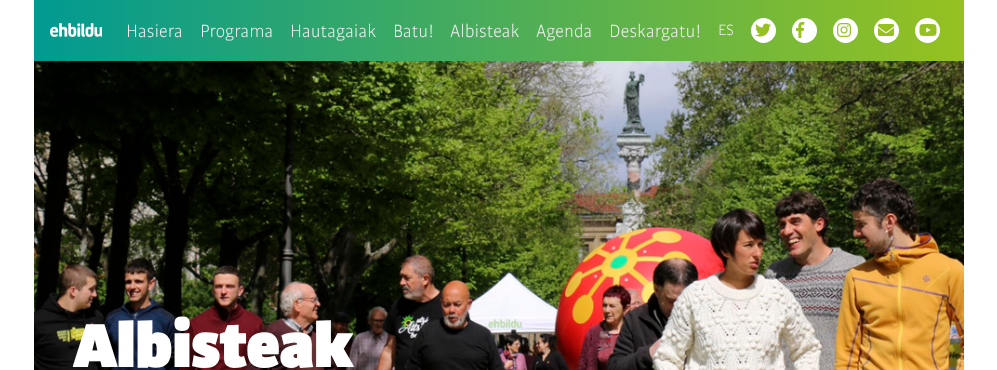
async function draw(canvas) {
  canvas.width = 997;
  canvas.height = 370;
  const ctx = canvas.getContext('2d');
  ctx.miterLimit = 4;
  ctx.fontKerning = 'normal';
  function label(s, x, y, font, color) {
    ctx.font = font;
    ctx.fillStyle = color;
    ctx.fillText(s, x, y);
  }
  function rect(x, y, w, h, color) {
    ctx.fillStyle = color;
    ctx.fillRect(x, y, w, h);
  }
  async function image(src, x, y, w, h) {
    const img = new Image();
    img.src = src;
    await img.decode();
    ctx.drawImage(img, x, y, w, h);
  }
  let gradient;

  rect(0, 0, 997, 370, '#fff');
  gradient = ctx.createLinearGradient(34, 31, 964, 30);
  gradient.addColorStop(0, '#009a92');
  gradient.addColorStop(1, '#96c120');
  ctx.fillStyle = gradient;
  ctx.fillRect(34, 0, 930, 61);
  await image('assets/img1.png', 50, 23, 52, 14);
  label('Hasiera', 126, 37, '300 19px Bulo', '#efefef');
  label('Programa', 200, 37, '300 19px Bulo', '#efefef');
  label('Hautagaiak', 290, 37, '300 19px Bulo', '#efefef');
  label('Batu!', 393, 37, '300 19px Bulo', '#efefef');
  label('Albisteak', 450, 37, '300 19px Bulo', '#efefef');
  label('Agenda', 536, 37, '300 19px Bulo', '#efefef');
  label('Deskargatu!', 609, 37, '300 19px Bulo', '#efefef');
  label('ES', 718, 35, '300 16px Bulo', '#efefef');
  ctx.fillStyle = '#fff';
  ctx.beginPath();
  ctx.arc(763.5, 30.5, 12.5, 0, 2 * Math.PI);
  ctx.fill();
  await image('assets/img2.png', 755, 23, 16, 14);
  ctx.beginPath();
  ctx.arc(804.5, 30.5, 12.5, 0, 2 * Math.PI);
  ctx.fill();
  await image('assets/img3.png', 796, 22, 9, 16);
  ctx.beginPath();
  ctx.arc(845.5, 30.5, 12.5, 0, 2 * Math.PI);
  ctx.fill();
  await image('assets/img4.png', 837, 23, 15, 14);
  ctx.beginPath();
  ctx.arc(886.5, 30.5, 12.5, 0, 2 * Math.PI);
  ctx.fill();
  await image('assets/img5.png', 878, 24, 16, 12);
  ctx.beginPath();
  ctx.arc(927.5, 30.5, 12.5, 0, 2 * Math.PI);
  ctx.fill();
  await image('assets/img6.png', 919, 24, 18, 12);
  await image('assets/img7.png', 34, 61, 930, 309);
  label('Albisteak', 74, 367, '800 66.25px Bulo', '#fff');
}

draw(document.querySelector('canvas'));
